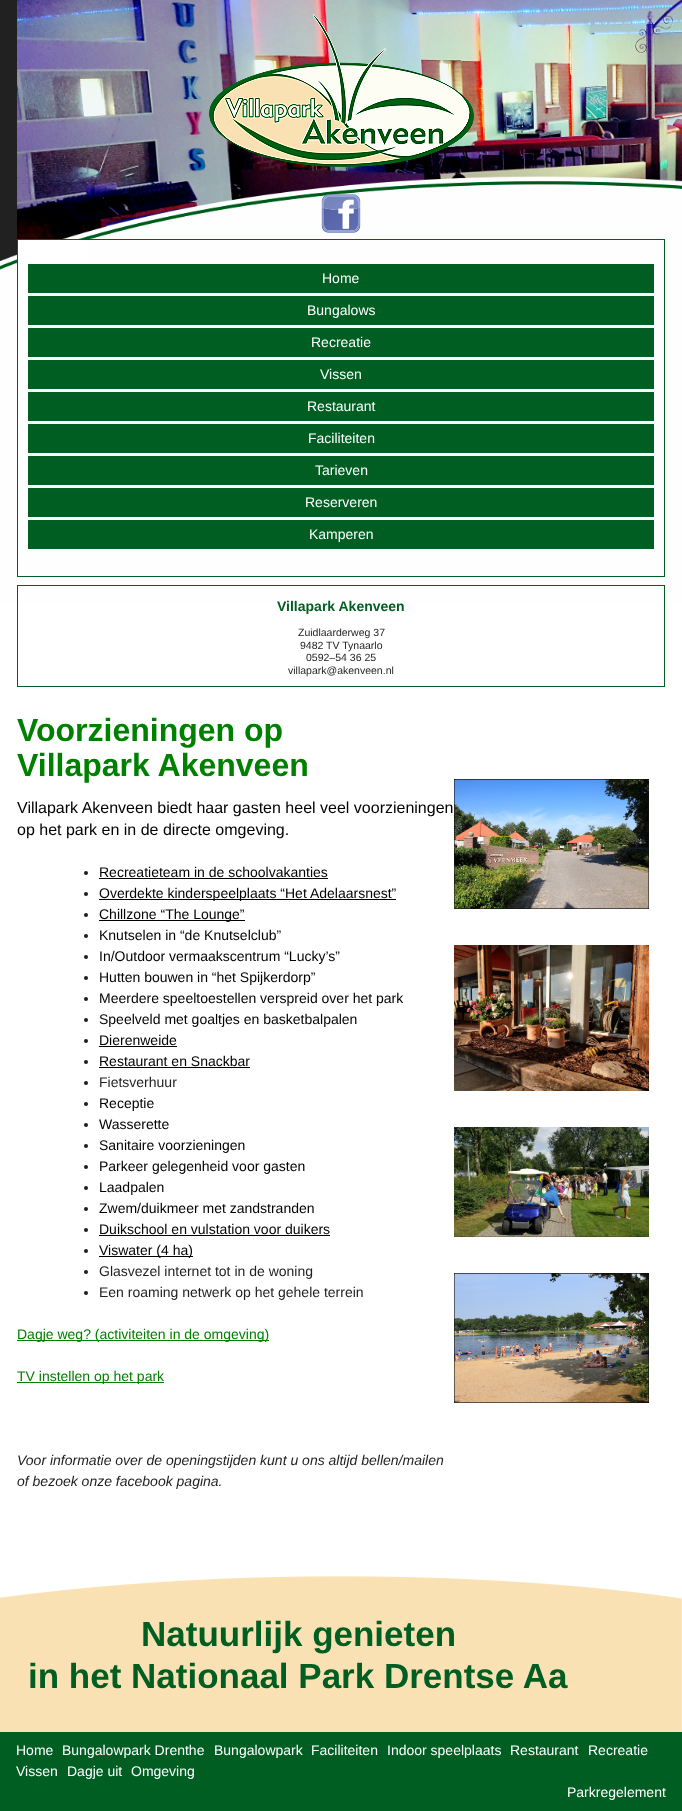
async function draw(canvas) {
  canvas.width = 682;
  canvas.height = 1811;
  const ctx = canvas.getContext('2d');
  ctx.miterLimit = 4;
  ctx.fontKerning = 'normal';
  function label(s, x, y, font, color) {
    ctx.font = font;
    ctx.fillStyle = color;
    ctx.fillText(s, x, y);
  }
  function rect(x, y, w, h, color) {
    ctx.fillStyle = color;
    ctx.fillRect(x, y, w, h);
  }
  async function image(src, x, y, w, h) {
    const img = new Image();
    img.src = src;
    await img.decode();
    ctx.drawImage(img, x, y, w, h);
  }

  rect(0, 0, 682, 1811, '#212121');
  await image('assets/img2.png', 17, 0, 665, 239);
  await image('assets/img1.png', 0, 176, 682, 1373);
  await image('assets/img3.png', 209, 14, 265, 153);
  await image('assets/img4.png', 321, 194, 40, 39);
  rect(18, 240, 69, 23, '#fff');
  ctx.strokeStyle = '#005e22';
  ctx.strokeRect(17.5, 239.5, 647, 337);
  rect(28, 264, 626, 29, '#005e22');
  label('Home', 322, 283, '14px Liberation Sans', '#fff');
  rect(28, 296, 626, 29, '#005e22');
  label('Bungalows', 307, 315, '14px Liberation Sans', '#fff');
  rect(28, 328, 626, 29, '#005e22');
  label('Recreatie', 311, 347, '14px Liberation Sans', '#fff');
  rect(28, 360, 626, 29, '#005e22');
  label('Vissen', 320, 379, '14px Liberation Sans', '#fff');
  rect(28, 392, 626, 29, '#005e22');
  label('Restaurant', 307, 411, '14px Liberation Sans', '#fff');
  rect(28, 424, 626, 29, '#005e22');
  label('Faciliteiten', 308, 443, '14px Liberation Sans', '#fff');
  rect(28, 456, 626, 29, '#005e22');
  label('Tarieven', 315, 475, '14px Liberation Sans', '#fff');
  rect(28, 488, 626, 29, '#005e22');
  label('Reserveren', 305, 507, '14px Liberation Sans', '#fff');
  rect(28, 520, 626, 29, '#005e22');
  label('Kamperen', 309, 539, '14px Liberation Sans', '#fff');
  ctx.strokeRect(17.5, 585.5, 647, 101);
  label('Villapark Akenveen', 277, 611, 'bold 14px Liberation Sans', '#005e22');
  label('Zuidlaarderweg 37', 298, 636, '10.5px Liberation Sans', '#1e1e1e');
  label('9482 TV Tynaarlo', 300, 649, '10.5px Liberation Sans', '#1e1e1e');
  label('0592–54 36 25', 306, 661, '10.5px Liberation Sans', '#1e1e1e');
  label('villapark@akenveen.nl', 288, 674, '10.5px Liberation Sans', '#1e1e1e');
  label('Voorzieningen op', 17, 741, 'bold 32px Liberation Sans', '#008000');
  label('Villapark Akenveen', 17, 776, 'bold 32px Liberation Sans', '#008000');
  label('Villapark Akenveen biedt haar gasten heel veel voorzieningen', 17, 813, '16px Liberation Sans', '#000');
  label('op het park en in de directe omgeving.', 17, 835, '16px Liberation Sans', '#000');
  ctx.fillStyle = '#1e1e1e';
  ctx.beginPath();
  ctx.arc(86, 873, 2, 0, 2 * Math.PI);
  ctx.fill();
  label('Recreatieteam in de schoolvakanties', 99, 877, '14px Liberation Sans', '#000');
  rect(99, 878, 229, 1, '#000');
  ctx.fillStyle = '#1e1e1e';
  ctx.beginPath();
  ctx.arc(86, 894, 2, 0, 2 * Math.PI);
  ctx.fill();
  rect(99, 899, 297, 1, '#000');
  label('Overdekte kinderspeelplaats “Het Adelaarsnest”', 99, 898, '14px Liberation Sans', '#000');
  ctx.fillStyle = '#1e1e1e';
  ctx.beginPath();
  ctx.arc(86, 915, 2, 0, 2 * Math.PI);
  ctx.fill();
  rect(99, 920, 146, 1, '#000');
  label('Chillzone “The Lounge”', 99, 919, '14px Liberation Sans', '#000');
  ctx.fillStyle = '#1e1e1e';
  ctx.beginPath();
  ctx.arc(86, 936, 2, 0, 2 * Math.PI);
  ctx.fill();
  label('Knutselen in “de Knutselclub”', 99, 940, '14px Liberation Sans', '#000');
  ctx.fillStyle = '#1e1e1e';
  ctx.beginPath();
  ctx.arc(86, 957, 2, 0, 2 * Math.PI);
  ctx.fill();
  label('In/Outdoor vermaakscentrum “Lucky’s”', 99, 961, '14px Liberation Sans', '#000');
  ctx.fillStyle = '#1e1e1e';
  ctx.beginPath();
  ctx.arc(86, 978, 2, 0, 2 * Math.PI);
  ctx.fill();
  label('Hutten bouwen in “het Spijkerdorp”', 99, 982, '14px Liberation Sans', '#000');
  ctx.fillStyle = '#1e1e1e';
  ctx.beginPath();
  ctx.arc(86, 999, 2, 0, 2 * Math.PI);
  ctx.fill();
  label('Meerdere speeltoestellen verspreid over het park', 99, 1003, '14px Liberation Sans', '#000');
  ctx.fillStyle = '#1e1e1e';
  ctx.beginPath();
  ctx.arc(86, 1020, 2, 0, 2 * Math.PI);
  ctx.fill();
  label('Speelveld met goaltjes en basketbalpalen', 99, 1024, '14px Liberation Sans', '#000');
  ctx.fillStyle = '#1e1e1e';
  ctx.beginPath();
  ctx.arc(86, 1041, 2, 0, 2 * Math.PI);
  ctx.fill();
  label('Dierenweide', 99, 1045, '14px Liberation Sans', '#000');
  rect(99, 1046, 78, 1, '#000');
  ctx.fillStyle = '#1e1e1e';
  ctx.beginPath();
  ctx.arc(86, 1062, 2, 0, 2 * Math.PI);
  ctx.fill();
  label('Restaurant en Snackbar', 99, 1066, '14px Liberation Sans', '#000');
  rect(99, 1067, 151, 1, '#000');
  ctx.fillStyle = '#1e1e1e';
  ctx.beginPath();
  ctx.arc(86, 1083, 2, 0, 2 * Math.PI);
  ctx.fill();
  label('Fietsverhuur', 99, 1087, '14px Liberation Sans', '#1e1e1e');
  ctx.beginPath();
  ctx.arc(86, 1104, 2, 0, 2 * Math.PI);
  ctx.fill();
  label('Receptie', 99, 1108, '14px Liberation Sans', '#000');
  ctx.fillStyle = '#1e1e1e';
  ctx.beginPath();
  ctx.arc(86, 1125, 2, 0, 2 * Math.PI);
  ctx.fill();
  label('Wasserette', 99, 1129, '14px Liberation Sans', '#000');
  ctx.fillStyle = '#1e1e1e';
  ctx.beginPath();
  ctx.arc(86, 1146, 2, 0, 2 * Math.PI);
  ctx.fill();
  label('Sanitaire voorzieningen', 99, 1150, '14px Liberation Sans', '#000');
  ctx.fillStyle = '#1e1e1e';
  ctx.beginPath();
  ctx.arc(86, 1167, 2, 0, 2 * Math.PI);
  ctx.fill();
  label('Parkeer gelegenheid voor gasten', 99, 1171, '14px Liberation Sans', '#000');
  ctx.fillStyle = '#1e1e1e';
  ctx.beginPath();
  ctx.arc(86, 1188, 2, 0, 2 * Math.PI);
  ctx.fill();
  label('Laadpalen', 99, 1192, '14px Liberation Sans', '#000');
  ctx.fillStyle = '#1e1e1e';
  ctx.beginPath();
  ctx.arc(86, 1209, 2, 0, 2 * Math.PI);
  ctx.fill();
  label('Zwem/duikmeer met zandstranden', 99, 1213, '14px Liberation Sans', '#000');
  ctx.fillStyle = '#1e1e1e';
  ctx.beginPath();
  ctx.arc(86, 1230, 2, 0, 2 * Math.PI);
  ctx.fill();
  label('Duikschool en vulstation voor duikers', 99, 1234, '14px Liberation Sans', '#000');
  rect(99, 1235, 231, 1, '#000');
  ctx.fillStyle = '#1e1e1e';
  ctx.beginPath();
  ctx.arc(86, 1251, 2, 0, 2 * Math.PI);
  ctx.fill();
  rect(99, 1256, 94, 1, '#000');
  label('Viswater (4 ha)', 99, 1255, '14px Liberation Sans', '#000');
  ctx.fillStyle = '#1e1e1e';
  ctx.beginPath();
  ctx.arc(86, 1272, 2, 0, 2 * Math.PI);
  ctx.fill();
  label('Glasvezel internet tot in de woning', 99, 1276, '14px Liberation Sans', '#1e1e1e');
  ctx.beginPath();
  ctx.arc(86, 1293, 2, 0, 2 * Math.PI);
  ctx.fill();
  label('Een roaming netwerk op het gehele terrein', 99, 1297, '14px Liberation Sans', '#1e1e1e');
  rect(17, 1340, 252, 1, '#008000');
  label('Dagje weg? (activiteiten in de omgeving)', 17, 1339, '14px Liberation Sans', '#008000');
  rect(17, 1382, 147, 1, '#008000');
  label('TV instellen op het park', 17, 1381, '14px Liberation Sans', '#008000');
  label('Voor informatie over de openingstijden kunt u ons altijd bellen/mailen', 17, 1465, 'italic 14px Liberation Sans', '#1e1e1e');
  label('of bezoek onze facebook pagina.', 17, 1486, 'italic 14px Liberation Sans', '#1e1e1e');
  await image('assets/img5.png', 454, 779, 195, 130);
  await image('assets/img6.png', 454, 945, 195, 146);
  await image('assets/img7.png', 454, 1127, 195, 110);
  await image('assets/img8.png', 454, 1273, 195, 130);
  rect(0, 1549, 682, 183, '#fff');
  await image('assets/img9.png', 0, 1576, 682, 156);
  label('Natuurlijk genieten', 141, 1646, 'bold 35px Liberation Sans', '#005e22');
  label('in het Nationaal Park Drentse Aa', 28, 1688, 'bold 35px Liberation Sans', '#005e22');
  rect(0, 1732, 682, 79, '#005e22');
  label('Home', 16, 1755, '14px Liberation Sans', '#fff');
  label('Bungalowpark Drenthe', 62, 1755, '14px Liberation Sans', '#fff');
  label('Bungalowpark', 214, 1755, '14px Liberation Sans', '#fff');
  label('Faciliteiten', 311, 1755, '14px Liberation Sans', '#fff');
  label('Indoor speelplaats', 387, 1755, '14px Liberation Sans', '#fff');
  label('Restaurant', 510, 1755, '14px Liberation Sans', '#fff');
  label('Recreatie', 588, 1755, '14px Liberation Sans', '#fff');
  label('Vissen', 16, 1776, '14px Liberation Sans', '#fff');
  label('Dagje uit', 67, 1776, '14px Liberation Sans', '#fff');
  label('Omgeving', 131, 1776, '14px Liberation Sans', '#fff');
  label('Parkregelement', 567, 1797, '14px Liberation Sans', '#fff');
}

draw(document.querySelector('canvas'));
